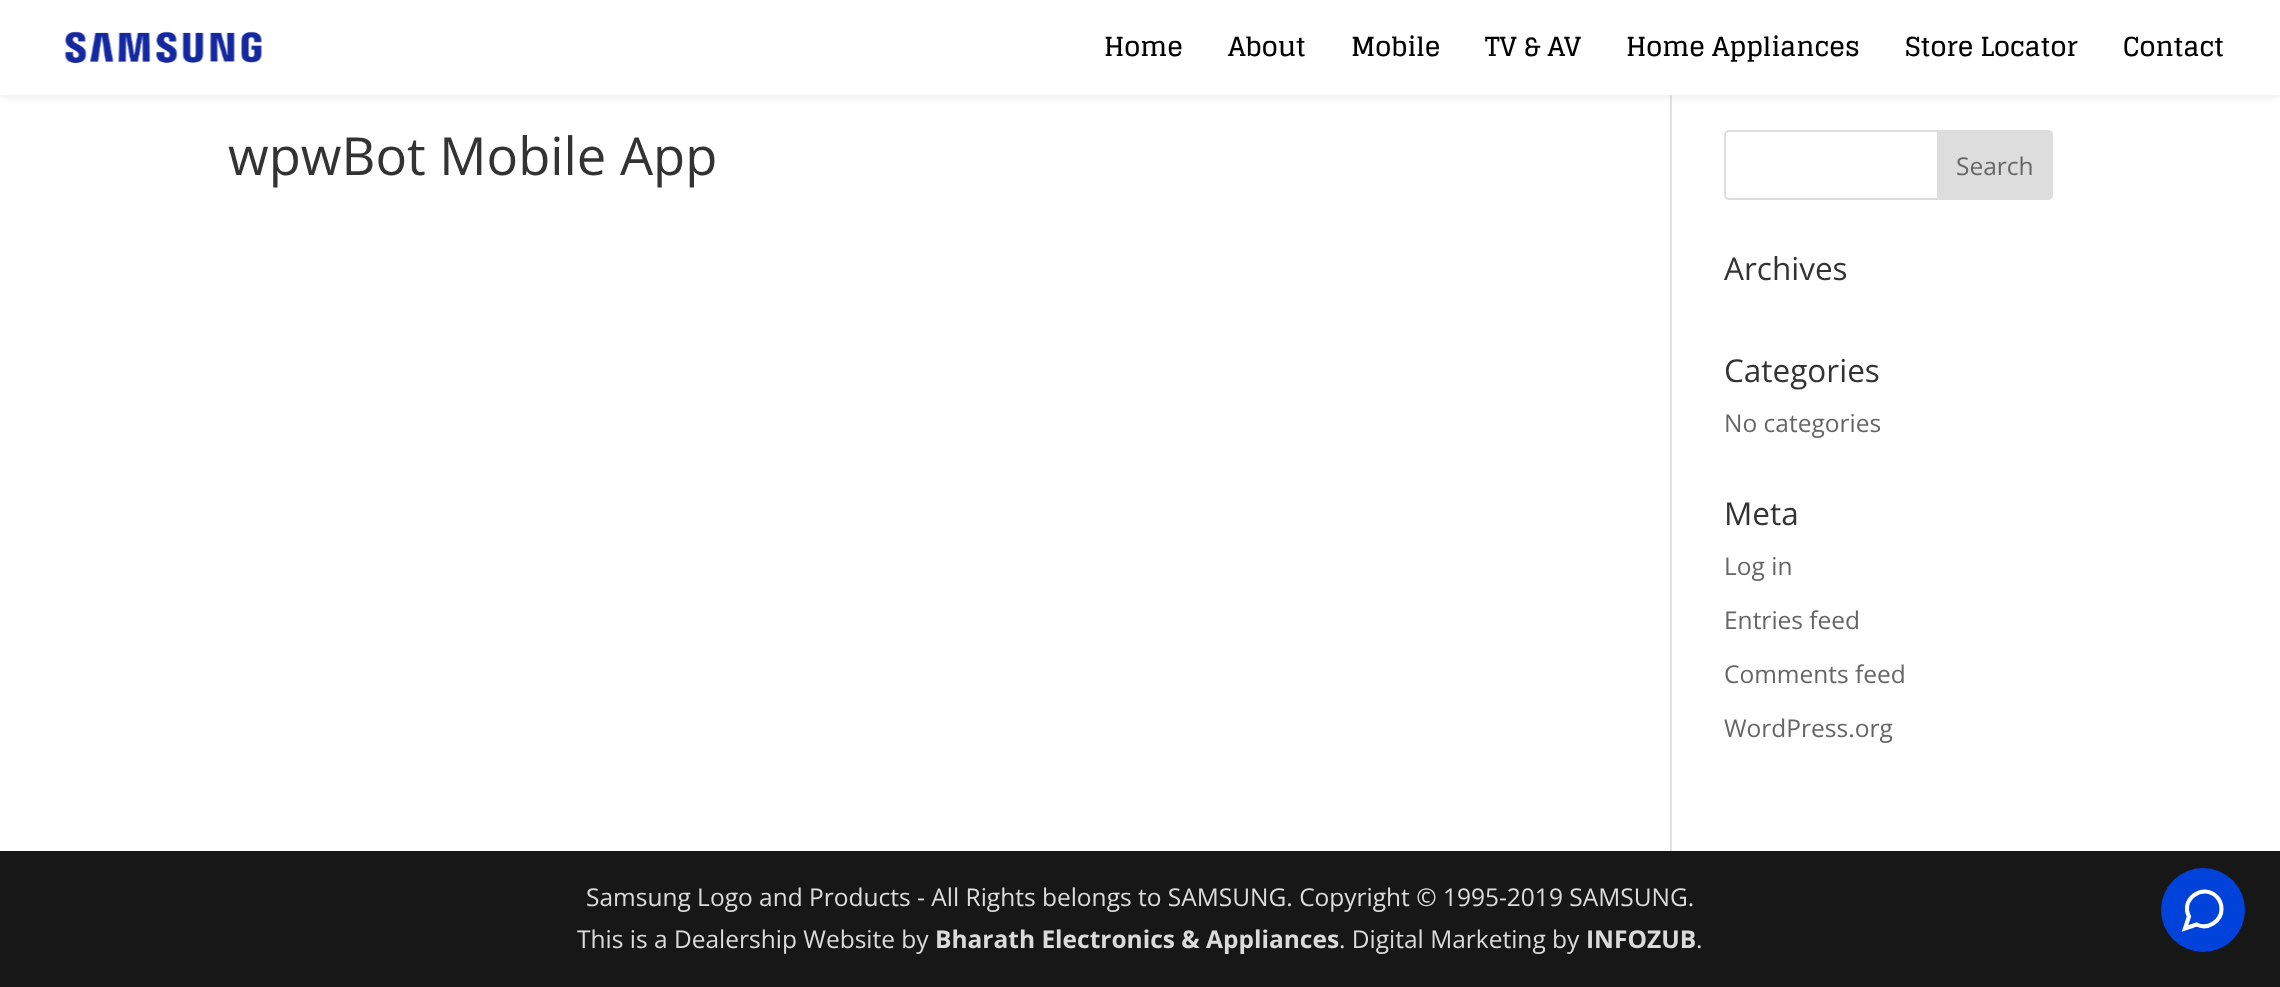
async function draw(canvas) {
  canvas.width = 2280;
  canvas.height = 987;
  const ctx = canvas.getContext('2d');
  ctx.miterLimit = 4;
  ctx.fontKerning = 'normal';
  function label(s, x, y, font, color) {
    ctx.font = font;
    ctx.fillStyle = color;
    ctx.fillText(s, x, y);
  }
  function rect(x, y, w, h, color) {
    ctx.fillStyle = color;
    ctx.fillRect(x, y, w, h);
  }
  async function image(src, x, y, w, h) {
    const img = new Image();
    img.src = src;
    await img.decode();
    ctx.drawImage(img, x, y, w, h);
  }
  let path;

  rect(0, 0, 2280, 987, '#fff');
  rect(1670, 95, 2, 756, '#e2e2e2');
  ctx.fillStyle = '#0000001a';
  ctx.filter = 'blur(6px)';
  ctx.beginPath();
  ctx.rect(0, 0, 2280, 95);
  ctx.fill();
  ctx.filter = 'none';
  rect(0, 0, 2280, 95, '#fff');
  await image('assets/img1.png', 64, 31, 198, 33);
  label('Home', 1104, 56, 'bold 26.25px Glegoo', '#000');
  label('About', 1228, 56, 'bold 26.25px Glegoo', '#000');
  label('Mobile', 1351, 56, 'bold 26.25px Glegoo', '#000');
  label('TV & AV', 1485, 56, 'bold 26.25px Glegoo', '#000');
  label('Home Appliances', 1626, 56, 'bold 26.25px Glegoo', '#000');
  label('Store Locator', 1905, 56, 'bold 26.25px Glegoo', '#000');
  label('Contact', 2123, 56, 'bold 26.25px Glegoo', '#000');
  label('wpwBot Mobile App', 228, 175, '52.5px Open Sans', '#333');
  ctx.beginPath();
  ctx.roundRect(1725, 131, 327, 68, 4);
  ctx.strokeStyle = '#ddd';
  ctx.lineWidth = 2;
  ctx.stroke();
  ctx.fillStyle = '#ddd';
  ctx.beginPath();
  ctx.roundRect(1938, 131, 114, 68, [0, 4, 4, 0]);
  ctx.fill();
  ctx.stroke();
  label('Search', 1956, 175, '24.5px Open Sans', '#666');
  label('Archives', 1724, 280, '31.5px Open Sans', '#333');
  label('Categories', 1724, 382, '31.5px Open Sans', '#333');
  label('No categories', 1724, 432, '24.5px Open Sans', '#666');
  label('Meta', 1724, 525, '31.5px Open Sans', '#333');
  label('Log in', 1724, 575, '24.5px Open Sans', '#666');
  label('Entries feed', 1724, 629, '24.5px Open Sans', '#666');
  label('Comments feed', 1724, 683, '24.5px Open Sans', '#666');
  label('WordPress.org', 1724, 737, '24.5px Open Sans', '#666');
  rect(0, 851, 2280, 136, '#171717');
  label('Samsung Logo and Products - All Rights belongs to SAMSUNG. Copyright © 1995-2019 SAMSUNG.', 586, 906, '24.5px Open Sans', '#dbdbdb');
  label('This is a Dealership Website by', 577, 948, '24.5px Open Sans', '#dbdbdb');
  label('Bharath Electronics & Appliances', 935, 948, 'bold 24.5px Open Sans', '#dbdbdb');
  label('. Digital Marketing by', 1339, 948, '24.5px Open Sans', '#dbdbdb');
  label('INFOZUB', 1586, 948, 'bold 24.5px Open Sans', '#dbdbdb');
  label('.', 1696, 948, '24.5px Open Sans', '#dbdbdb');
  ctx.fillStyle = '#0042da';
  ctx.beginPath();
  ctx.arc(2203, 910, 42, 0, 2 * Math.PI);
  ctx.fill();
  path = new Path2D('M2221.5 909C2221.5 921.5 2207.5 930 2196.5 924.5L2185 928.5L2189 916.5C2180 899.5 2202.5 883 2216.5 896.5C2220 900 2221.5 904.5 2221.5 909Z');
  ctx.strokeStyle = '#fff';
  ctx.lineWidth = 4.1;
  ctx.stroke(path);
}

draw(document.querySelector('canvas'));
